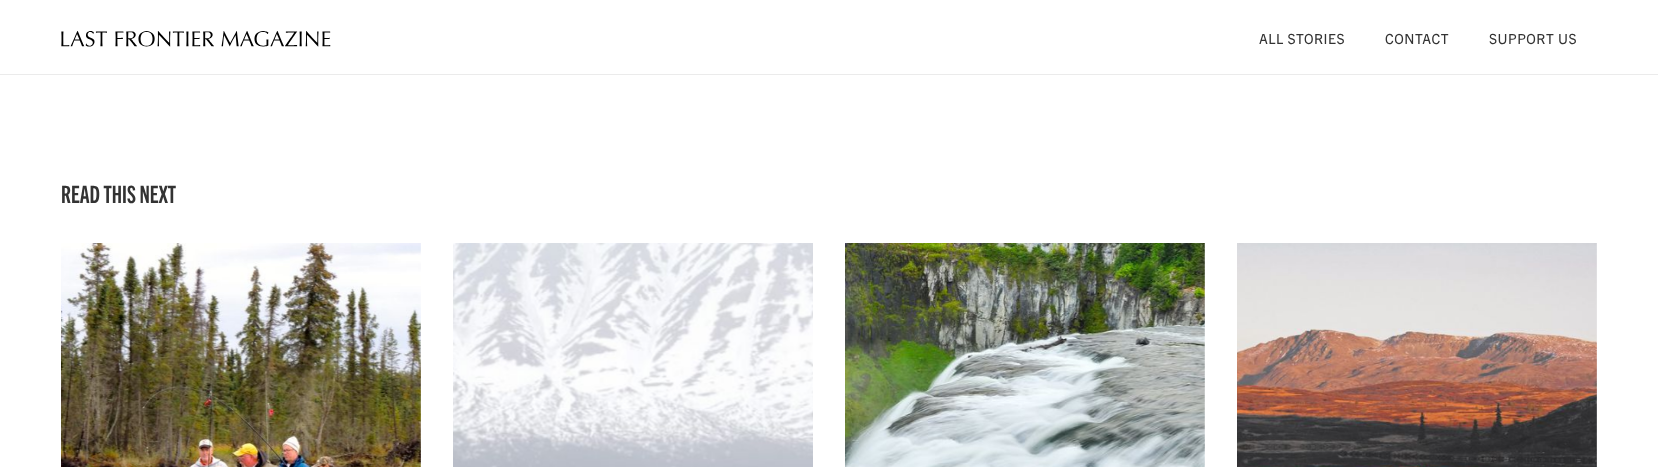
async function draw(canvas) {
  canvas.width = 1658;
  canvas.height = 467;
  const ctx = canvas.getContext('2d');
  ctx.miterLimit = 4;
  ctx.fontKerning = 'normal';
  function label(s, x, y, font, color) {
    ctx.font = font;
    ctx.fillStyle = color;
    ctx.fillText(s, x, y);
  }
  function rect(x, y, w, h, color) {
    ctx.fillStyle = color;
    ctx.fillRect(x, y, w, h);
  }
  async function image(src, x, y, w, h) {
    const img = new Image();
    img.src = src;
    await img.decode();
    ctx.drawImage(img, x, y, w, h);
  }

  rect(0, 0, 1658, 467, '#fff');
  rect(0, 74, 1658, 1, '#ebebeb');
  await image('assets/img1.png', 61, 31, 270, 16);
  ctx.letterSpacing = '0.5px';
  label('ALL STORIES', 1259, 44, '14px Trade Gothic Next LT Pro', '#333');
  label('CONTACT', 1385, 44, '14px Trade Gothic Next LT Pro', '#333');
  label('SUPPORT US', 1489, 44, '14px Trade Gothic Next LT Pro', '#333');
  ctx.letterSpacing = '0px';
  label('READ THIS NEXT', 61, 203, 'bold 24px Trade Gothic Next LT Pro', '#333');
  await image('assets/img2.png', 61, 243, 360, 224);
  await image('assets/img3.png', 453, 243, 360, 224);
  await image('assets/img4.png', 845, 243, 360, 224);
  await image('assets/img5.png', 1237, 243, 360, 224);
}

draw(document.querySelector('canvas'));
